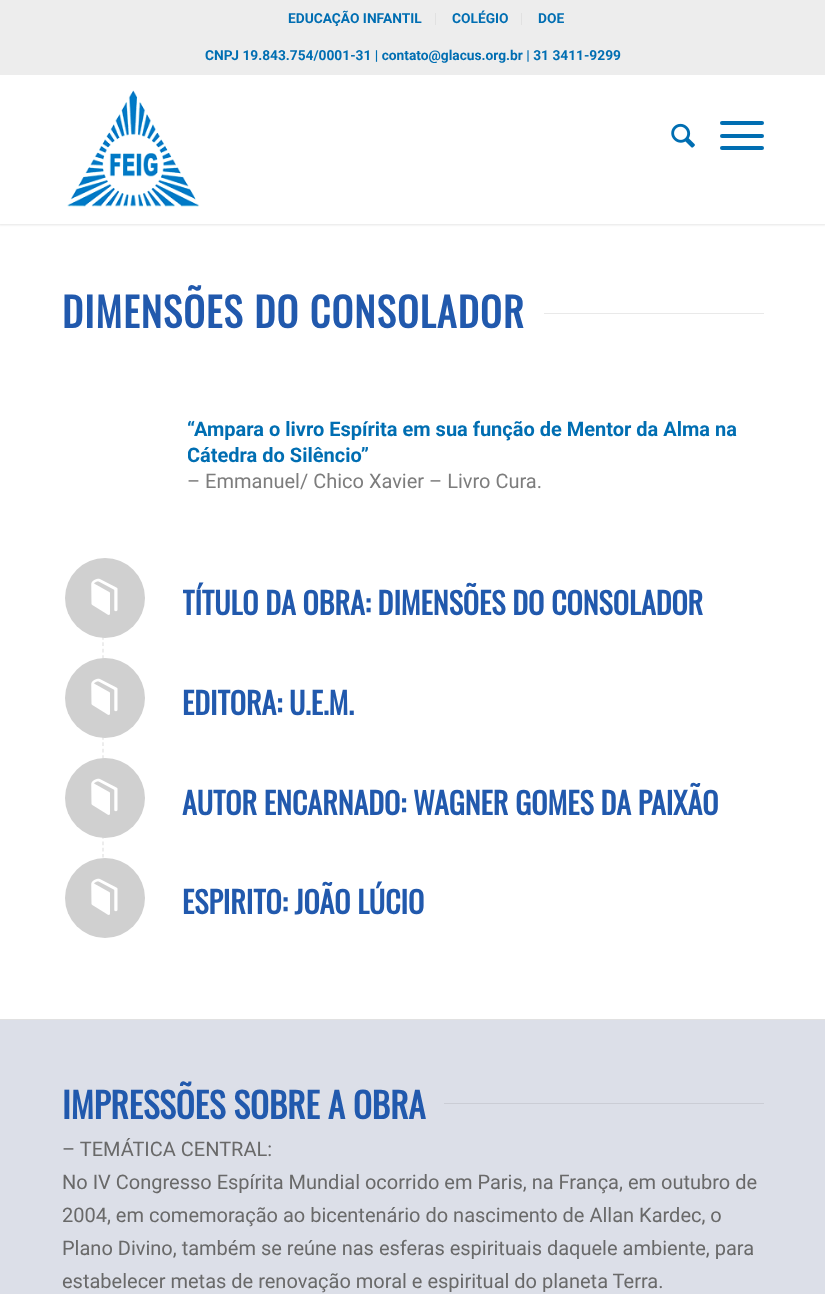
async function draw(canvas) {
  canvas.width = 825;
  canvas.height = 1294;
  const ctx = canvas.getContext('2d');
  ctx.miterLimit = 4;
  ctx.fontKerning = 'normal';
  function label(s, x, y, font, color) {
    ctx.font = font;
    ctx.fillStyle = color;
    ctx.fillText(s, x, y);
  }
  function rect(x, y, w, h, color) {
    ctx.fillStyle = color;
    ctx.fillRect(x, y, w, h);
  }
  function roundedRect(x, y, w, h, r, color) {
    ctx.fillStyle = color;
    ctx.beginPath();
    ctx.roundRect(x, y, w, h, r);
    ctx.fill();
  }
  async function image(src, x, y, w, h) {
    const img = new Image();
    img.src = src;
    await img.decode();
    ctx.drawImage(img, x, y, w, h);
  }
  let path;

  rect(0, 0, 825, 1294, '#fff');
  ctx.fillStyle = '#0000001a';
  ctx.filter = 'blur(1px)';
  ctx.beginPath();
  ctx.rect(-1, -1, 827, 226);
  ctx.fill();
  ctx.filter = 'none';
  rect(0, 0, 825, 75, '#ededed');
  rect(435, 13, 1, 12, '#e1e1e1');
  label('EDUCAÇÃO INFANTIL', 288, 23, 'bold 13.75px Roboto', '#006eb2');
  rect(521, 13, 1, 12, '#e1e1e1');
  label('COLÉGIO', 452, 23, 'bold 13.75px Roboto', '#006eb2');
  label('DOE', 538, 23, 'bold 13.75px Roboto', '#006eb2');
  label('CNPJ 19.843.754/0001-31 | contato@glacus.org.br | 31 3411-9299', 205, 60, 'bold 13.75px Roboto', '#006eb2');
  rect(0, 75, 825, 149, '#fff');
  await image('assets/img1.png', 67, 90, 133, 117);
  await image('assets/img2.png', 671, 123, 24, 25);
  roundedRect(720, 134, 44, 4, 2, '#006eb2');
  roundedRect(720, 121, 44, 4, 2, '#006eb2');
  roundedRect(720, 146, 44, 4, 2, '#006eb2');
  ctx.letterSpacing = '1.25px';
  label('DIMENSÕES DO CONSOLADOR', 62, 328, 'bold 40px Oswald', '#2159ad');
  rect(544, 313, 220, 1, '#e9e9e9');
  ctx.letterSpacing = '0px';
  label('“Ampara o livro Espírita em sua função de Mentor da Alma na', 187, 436, 'bold 20px Roboto', '#006eb2');
  ctx.save();
  ctx.beginPath();
  ctx.rect(188, 414, 576, 81);
  ctx.clip();
  label('Cátedra do Silêncio”', 187, 462, 'bold 20px Roboto', '#006eb2');
  ctx.restore();
  label('– Emmanuel/ Chico Xavier – Livro Cura.', 187, 488, '20px Roboto', '#7d7d7d');
  path = new Path2D('M103 559V659');
  ctx.strokeStyle = '#e1e1e1';
  ctx.lineWidth = 1.2;
  ctx.setLineDash([3.75, 2.66]);
  ctx.stroke(path);
  ctx.fillStyle = '#d0d0d0';
  ctx.beginPath();
  ctx.arc(105, 598, 40, 0, 2 * Math.PI);
  ctx.fill();
  await image('assets/img3.png', 91, 578, 27, 37);
  ctx.save();
  ctx.beginPath();
  ctx.rect(183, 558, 581, 62);
  ctx.clip();
  label('TÍTULO DA OBRA: DIMENSÕES DO CONSOLADOR', 182, 615, 'bold 30px Oswald', '#2159ad');
  ctx.restore();
  path = new Path2D('M103 659V759');
  ctx.stroke(path);
  ctx.beginPath();
  ctx.arc(105, 698, 40, 0, 2 * Math.PI);
  ctx.fill();
  await image('assets/img3.png', 91, 678, 27, 37);
  label('EDITORA: U.E.M.', 182, 715, 'bold 30px Oswald', '#2159ad');
  path = new Path2D('M103 759V857.5');
  ctx.setLineDash([3.75, 2.59]);
  ctx.stroke(path);
  ctx.fillStyle = '#d0d0d0';
  ctx.beginPath();
  ctx.arc(105, 798, 40, 0, 2 * Math.PI);
  ctx.fill();
  await image('assets/img3.png', 91, 778, 27, 37);
  label('AUTOR ENCARNADO: WAGNER GOMES DA PAIXÃO', 182, 815, 'bold 30px Oswald', '#2159ad');
  ctx.fillStyle = '#d0d0d0';
  ctx.beginPath();
  ctx.arc(105, 898, 40, 0, 2 * Math.PI);
  ctx.fill();
  await image('assets/img3.png', 91, 878, 27, 37);
  label('ESPIRITO: JOÃO LÚCIO', 182, 914, 'bold 30px Oswald', '#2159ad');
  rect(0, 1020, 825, 274, '#dcdfe8');
  rect(0, 1019, 825, 1, '#e1e1e1');
  label('IMPRESSÕES SOBRE A OBRA', 62, 1119, 'bold 35px Oswald', '#2159ad');
  rect(444, 1103, 320, 1, '#cbcdd5');
  label('– TEMÁTICA CENTRAL:', 62, 1156, '20px Roboto', '#696969');
  label('No IV Congresso Espírita Mundial ocorrido em Paris, na França, em outubro de', 62, 1189, '20px Roboto', '#696969');
  label('2004, em comemoração ao bicentenário do nascimento de Allan Kardec, o', 62, 1222, '20px Roboto', '#696969');
  label('Plano Divino, também se reúne nas esferas espirituais daquele ambiente, para', 62, 1255, '20px Roboto', '#696969');
  label('estabelecer metas de renovação moral e espiritual do planeta Terra.', 62, 1288, '20px Roboto', '#696969');
}

draw(document.querySelector('canvas'));
